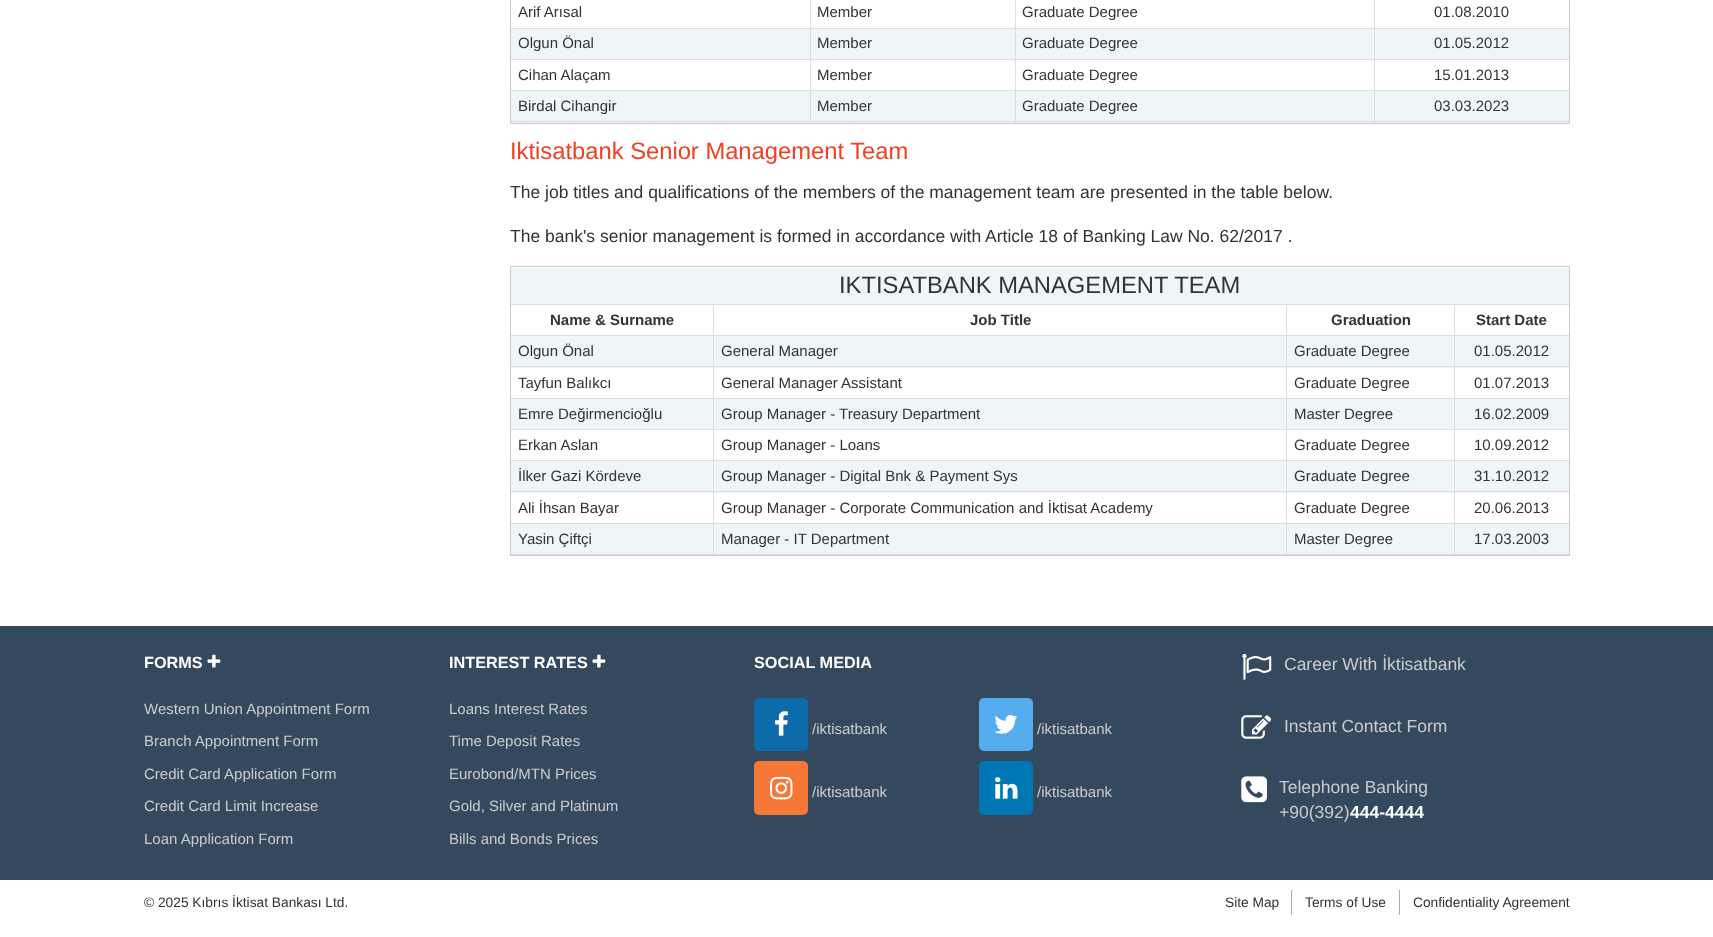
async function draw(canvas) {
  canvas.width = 1713;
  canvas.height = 937;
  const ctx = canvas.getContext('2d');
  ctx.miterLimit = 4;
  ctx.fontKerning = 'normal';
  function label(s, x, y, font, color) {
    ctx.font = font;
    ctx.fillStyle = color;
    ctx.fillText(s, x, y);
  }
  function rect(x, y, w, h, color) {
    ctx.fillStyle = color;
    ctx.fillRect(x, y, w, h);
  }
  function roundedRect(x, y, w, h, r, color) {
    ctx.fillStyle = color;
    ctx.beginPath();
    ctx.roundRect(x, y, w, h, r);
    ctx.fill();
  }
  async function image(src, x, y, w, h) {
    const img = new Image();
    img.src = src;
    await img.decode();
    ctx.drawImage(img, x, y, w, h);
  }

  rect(0, 0, 1713, 937, '#fff');
  ctx.strokeStyle = '#ccc';
  ctx.strokeRect(510.5, -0.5, 1059, 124);
  rect(511, 28, 1058, 1, '#ddd');
  label('Arif Arısal', 518, 17, '15px Liberation Sans', '#333');
  rect(810, 0, 1, 29, '#ddd');
  label('Member', 817, 17, '15px Liberation Sans', '#333');
  rect(1015, 0, 1, 29, '#ddd');
  label('Graduate Degree', 1022, 17, '15px Liberation Sans', '#333');
  rect(1374, 0, 1, 29, '#ddd');
  label('01.08.2010', 1434, 17, '15px Liberation Sans', '#333');
  rect(511, 29, 1058, 30, '#eef6f7');
  rect(511, 59, 1058, 1, '#ddd');
  label('Olgun Önal', 518, 48, '15px Liberation Sans', '#333');
  rect(810, 29, 1, 31, '#ddd');
  label('Member', 817, 48, '15px Liberation Sans', '#333');
  rect(1015, 29, 1, 31, '#ddd');
  label('Graduate Degree', 1022, 48, '15px Liberation Sans', '#333');
  rect(1374, 29, 1, 31, '#ddd');
  label('01.05.2012', 1434, 48, '15px Liberation Sans', '#333');
  rect(511, 90, 1058, 1, '#ddd');
  label('Cihan Alaçam', 518, 80, '15px Liberation Sans', '#333');
  rect(810, 60, 1, 31, '#ddd');
  label('Member', 817, 80, '15px Liberation Sans', '#333');
  rect(1015, 60, 1, 31, '#ddd');
  label('Graduate Degree', 1022, 80, '15px Liberation Sans', '#333');
  rect(1374, 60, 1, 31, '#ddd');
  label('15.01.2013', 1434, 80, '15px Liberation Sans', '#333');
  rect(511, 91, 1058, 32, '#eef6f7');
  rect(511, 121, 1058, 1, '#ddd');
  label('Birdal Cihangir', 518, 111, '15px Liberation Sans', '#333');
  rect(810, 91, 1, 32, '#ddd');
  label('Member', 817, 111, '15px Liberation Sans', '#333');
  rect(1015, 91, 1, 32, '#ddd');
  label('Graduate Degree', 1022, 111, '15px Liberation Sans', '#333');
  rect(1374, 91, 1, 32, '#ddd');
  label('03.03.2023', 1434, 111, '15px Liberation Sans', '#333');
  label('Iktisatbank Senior Management Team', 510, 159, '23.75px Liberation Sans', '#ef4023');
  label('The job titles and qualifications of the members of the management team are presented in the table below.', 510, 198, '17.5px Liberation Sans', '#333');
  label('The bank\'s senior management is formed in accordance with Article 18 of Banking Law No. 62/2017 .', 510, 242, '17.5px Liberation Sans', '#333');
  ctx.strokeRect(510.5, 266.5, 1059, 289);
  rect(511, 268, 1058, 36, '#eef6f7');
  rect(511, 304, 1058, 1, '#ddd');
  label('IKTISATBANK MANAGEMENT TEAM', 839, 293, '23.75px Liberation Sans', '#333');
  rect(511, 335, 1058, 1, '#ddd');
  label('Name & Surname', 550, 325, 'bold 15px Liberation Sans', '#333');
  rect(713, 305, 1, 31, '#ddd');
  label('Job Title', 970, 325, 'bold 15px Liberation Sans', '#333');
  rect(1286, 305, 1, 31, '#ddd');
  label('Graduation', 1331, 325, 'bold 15px Liberation Sans', '#333');
  rect(1454, 305, 1, 31, '#ddd');
  label('Start Date', 1476, 325, 'bold 15px Liberation Sans', '#333');
  rect(511, 336, 1058, 32, '#eef6f7');
  rect(511, 366, 1058, 1, '#ddd');
  label('Olgun Önal', 518, 356, '15px Liberation Sans', '#333');
  rect(713, 336, 1, 32, '#ddd');
  label('General Manager', 721, 356, '15px Liberation Sans', '#333');
  rect(1286, 336, 1, 32, '#ddd');
  label('Graduate Degree', 1294, 356, '15px Liberation Sans', '#333');
  rect(1454, 336, 1, 32, '#ddd');
  label('01.05.2012', 1474, 356, '15px Liberation Sans', '#333');
  rect(511, 398, 1058, 1, '#ddd');
  label('Tayfun Balıkcı', 518, 388, '15px Liberation Sans', '#333');
  rect(713, 368, 1, 31, '#ddd');
  label('General Manager Assistant', 721, 388, '15px Liberation Sans', '#333');
  rect(1286, 368, 1, 31, '#ddd');
  label('Graduate Degree', 1294, 388, '15px Liberation Sans', '#333');
  rect(1454, 368, 1, 31, '#ddd');
  label('01.07.2013', 1474, 388, '15px Liberation Sans', '#333');
  rect(511, 399, 1058, 30, '#eef6f7');
  rect(511, 429, 1058, 1, '#ddd');
  label('Emre Değirmencioğlu', 518, 419, '15px Liberation Sans', '#333');
  rect(713, 399, 1, 31, '#ddd');
  label('Group Manager - Treasury Department', 721, 419, '15px Liberation Sans', '#333');
  rect(1286, 399, 1, 31, '#ddd');
  label('Master Degree', 1294, 419, '15px Liberation Sans', '#333');
  rect(1454, 399, 1, 31, '#ddd');
  label('16.02.2009', 1474, 419, '15px Liberation Sans', '#333');
  rect(511, 460, 1058, 1, '#ddd');
  label('Erkan Aslan', 518, 450, '15px Liberation Sans', '#333');
  rect(713, 430, 1, 31, '#ddd');
  label('Group Manager - Loans', 721, 450, '15px Liberation Sans', '#333');
  rect(1286, 430, 1, 31, '#ddd');
  label('Graduate Degree', 1294, 450, '15px Liberation Sans', '#333');
  rect(1454, 430, 1, 31, '#ddd');
  label('10.09.2012', 1474, 450, '15px Liberation Sans', '#333');
  rect(511, 461, 1058, 32, '#eef6f7');
  rect(511, 491, 1058, 1, '#ddd');
  label('İlker Gazi Kördeve', 518, 481, '15px Liberation Sans', '#333');
  rect(713, 461, 1, 32, '#ddd');
  label('Group Manager - Digital Bnk & Payment Sys', 721, 481, '15px Liberation Sans', '#333');
  rect(1286, 461, 1, 32, '#ddd');
  label('Graduate Degree', 1294, 481, '15px Liberation Sans', '#333');
  rect(1454, 461, 1, 32, '#ddd');
  label('31.10.2012', 1474, 481, '15px Liberation Sans', '#333');
  rect(511, 523, 1058, 1, '#ddd');
  label('Ali İhsan Bayar', 518, 513, '15px Liberation Sans', '#333');
  rect(713, 493, 1, 31, '#ddd');
  label('Group Manager - Corporate Communication and İktisat Academy', 721, 513, '15px Liberation Sans', '#333');
  rect(1286, 493, 1, 31, '#ddd');
  label('Graduate Degree', 1294, 513, '15px Liberation Sans', '#333');
  rect(1454, 493, 1, 31, '#ddd');
  label('20.06.2013', 1474, 513, '15px Liberation Sans', '#333');
  rect(511, 524, 1058, 30, '#eef6f7');
  rect(511, 554, 1058, 1, '#ddd');
  label('Yasin Çiftçi', 518, 544, '15px Liberation Sans', '#333');
  rect(713, 524, 1, 31, '#ddd');
  label('Manager - IT Department', 721, 544, '15px Liberation Sans', '#333');
  rect(1286, 524, 1, 31, '#ddd');
  label('Master Degree', 1294, 544, '15px Liberation Sans', '#333');
  rect(1454, 524, 1, 31, '#ddd');
  label('17.03.2003', 1474, 544, '15px Liberation Sans', '#333');
  rect(0, 626, 1713, 254, '#34495e');
  label('FORMS', 144, 668, 'bold 16.25px Liberation Sans', '#fff');
  await image('assets/img1.png', 207, 654, 14, 14);
  label('Western Union Appointment Form', 144, 714, '15px Liberation Sans', '#ccc');
  label('Branch Appointment Form', 144, 746, '15px Liberation Sans', '#ccc');
  label('Credit Card Application Form', 144, 779, '15px Liberation Sans', '#ccc');
  label('Credit Card Limit Increase', 144, 811, '15px Liberation Sans', '#ccc');
  label('Loan Application Form', 144, 844, '15px Liberation Sans', '#ccc');
  label('INTEREST RATES', 449, 668, 'bold 16.25px Liberation Sans', '#fff');
  await image('assets/img1.png', 592, 654, 14, 14);
  label('Loans Interest Rates', 449, 714, '15px Liberation Sans', '#ccc');
  label('Time Deposit Rates', 449, 746, '15px Liberation Sans', '#ccc');
  label('Eurobond/MTN Prices', 449, 779, '15px Liberation Sans', '#ccc');
  label('Gold, Silver and Platinum', 449, 811, '15px Liberation Sans', '#ccc');
  label('Bills and Bonds Prices', 449, 844, '15px Liberation Sans', '#ccc');
  label('SOCIAL MEDIA', 754, 668, 'bold 16.25px Liberation Sans', '#fff');
  roundedRect(754, 698, 54, 53, 5, '#0c6caa');
  await image('assets/img2.png', 775, 711, 13, 25);
  label('/iktisatbank', 812, 734, '15px Liberation Sans', '#ccc');
  roundedRect(979, 698, 54, 53, 5, '#55acee');
  await image('assets/img3.png', 994, 715, 24, 19);
  label('/iktisatbank', 1037, 734, '15px Liberation Sans', '#ccc');
  roundedRect(754, 761, 54, 54, 5, '#f77737');
  await image('assets/img4.png', 770, 776, 23, 24);
  label('/iktisatbank', 812, 797, '15px Liberation Sans', '#ccc');
  roundedRect(979, 761, 54, 54, 5, '#0077b5');
  await image('assets/img5.png', 995, 777, 23, 22);
  label('/iktisatbank', 1037, 797, '15px Liberation Sans', '#ccc');
  await image('assets/img6.png', 1242, 653, 30, 27);
  label('Career With İktisatbank', 1284, 670, '17.5px Liberation Sans', '#ccc');
  await image('assets/img7.png', 1241, 715, 31, 24);
  label('Instant Contact Form', 1284, 732, '17.5px Liberation Sans', '#ccc');
  await image('assets/img8.png', 1241, 776, 26, 27);
  label('Telephone Banking', 1279, 793, '17.5px Liberation Sans', '#ccc');
  label('+90(392)', 1279, 818, '17.5px Liberation Sans', '#ccc');
  label('444-4444', 1350, 818, 'bold 17.5px Liberation Sans', '#fff');
  label('© 2025 Kıbrıs İktisat Bankası Ltd.', 144, 907, '13.75px Liberation Sans', '#333');
  rect(1291, 890, 1, 25, '#aaa');
  label('Site Map', 1225, 907, '13.75px Liberation Sans', '#333');
  rect(1399, 890, 1, 25, '#aaa');
  label('Terms of Use', 1305, 907, '13.75px Liberation Sans', '#333');
  label('Confidentiality Agreement', 1413, 907, '13.75px Liberation Sans', '#333');
}

draw(document.querySelector('canvas'));
